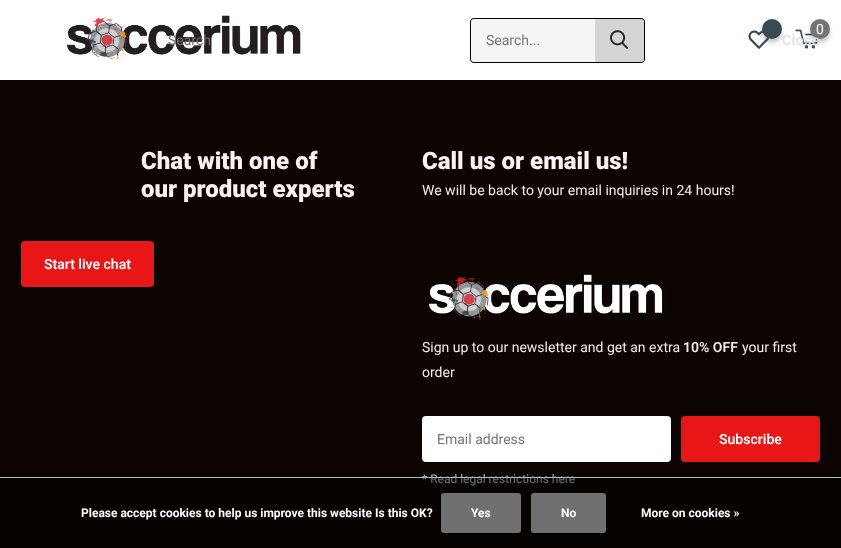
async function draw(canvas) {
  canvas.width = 841;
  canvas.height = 548;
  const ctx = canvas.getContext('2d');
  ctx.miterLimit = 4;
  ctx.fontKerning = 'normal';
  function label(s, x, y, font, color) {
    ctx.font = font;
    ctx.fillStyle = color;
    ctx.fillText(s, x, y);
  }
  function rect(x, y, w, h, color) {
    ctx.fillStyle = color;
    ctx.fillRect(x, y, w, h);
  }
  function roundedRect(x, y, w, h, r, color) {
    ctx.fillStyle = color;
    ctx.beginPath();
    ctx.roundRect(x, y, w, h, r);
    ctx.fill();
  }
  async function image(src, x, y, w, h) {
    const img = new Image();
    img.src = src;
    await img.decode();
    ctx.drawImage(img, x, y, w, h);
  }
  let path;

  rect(0, 0, 841, 548, '#0b0401');
  rect(0, 0, 841, 80, '#fff');
  await image('assets/img1.png', 67, 15, 234, 46);
  await image('assets/img2.png', 748, 30, 21, 19);
  ctx.fillStyle = '#28283040';
  ctx.filter = 'blur(2px)';
  ctx.beginPath();
  ctx.roundRect(762, 23, 20, 20, 10);
  ctx.fill();
  ctx.filter = 'none';
  ctx.fillStyle = '#394a54';
  ctx.beginPath();
  ctx.arc(772, 29, 10, 0, 2 * Math.PI);
  ctx.fill();
  await image('assets/img3.png', 795, 29, 24, 20);
  ctx.fillStyle = '#28283040';
  ctx.filter = 'blur(2px)';
  ctx.beginPath();
  ctx.roundRect(810, 23, 20, 20, 10);
  ctx.fill();
  ctx.filter = 'none';
  ctx.fillStyle = '#757575';
  ctx.beginPath();
  ctx.arc(820, 29, 10, 0, 2 * Math.PI);
  ctx.fill();
  label('0', 816, 34, '14px Roboto', '#fff');
  ctx.fillStyle = '#f5f5f5';
  ctx.beginPath();
  ctx.roundRect(470, 18, 125, 45, [4, 0, 0, 4]);
  ctx.fill();
  ctx.fillStyle = '#000';
  path = new Path2D('M474 18H595V63H474C472 63 470 61 470 59V22C470 20 472 18 474 18ZM474 19H595V62H474C472 62 471 61 471 59V22C471 20 472 19 474 19Z');
  ctx.fill(path, 'evenodd');
  label('Search...', 486, 45, '14px Roboto', '#757575');
  ctx.fillStyle = '#d4d4d4';
  ctx.beginPath();
  ctx.roundRect(595, 18, 50, 45, [0, 4, 4, 0]);
  ctx.fill();
  ctx.fillStyle = '#000';
  path = new Path2D('M595 18H641C643 18 645 20 645 22V59C645 61 643 63 641 63H595ZM595 19H641C643 19 644 20 644 22V59C644 61 643 62 641 62H595Z');
  ctx.fill(path, 'evenodd');
  await image('assets/img4.png', 610, 30, 19, 19);
  label('Search', 168, 45, '14px Roboto', '#716e6f');
  ctx.letterSpacing = '0.5px';
  label('Close', 782, 45, '500 14px Roboto', '#dddfe1');
  ctx.letterSpacing = '0px';
  label('Chat with one of', 141, 169, '900 24px Roboto', '#fbf1f1');
  label('our product experts', 141, 197, '900 24px Roboto', '#fbf1f1');
  roundedRect(21, 241, 133, 46, 4, '#e81616');
  label('Start live chat', 44, 269, '600 14px Roboto', '#fff');
  label('Call us or email us!', 422, 169, '900 24px Roboto', '#fbf1f1');
  label('We will be back to your email inquiries in 24 hours!', 422, 195, '14px Roboto', '#f6ebeb');
  await image('assets/img5.png', 429, 274, 234, 46);
  label('Sign up to our newsletter and get an extra', 422, 352, '14px Roboto', '#f6ebeb');
  label('10% OFF', 683, 352, '600 14px Roboto', '#f6ebeb');
  label('your first', 742, 352, '14px Roboto', '#f6ebeb');
  label('order', 422, 377, '14px Roboto', '#f6ebeb');
  roundedRect(422, 416, 249, 46, 4, '#fff');
  label('Email address', 437, 444, '14px Roboto', '#757575');
  roundedRect(681, 416, 139, 46, 4, '#e81616');
  label('Subscribe', 719, 444, '600 14px Roboto', '#fff');
  label('* Read legal restrictions here', 422, 483, '12px Roboto', '#babac6');
  rect(0, 478, 841, 70, '#00000066');
  rect(0, 477, 841, 1, '#bbb');
  label('Please accept cookies to help us improve this website Is this OK?', 81, 517, 'bold 12px Roboto', '#fff');
  roundedRect(441, 493, 80, 40, 3, '#707070');
  label('Yes', 471, 517, 'bold 12px Roboto', '#fff');
  roundedRect(531, 493, 75, 40, 3, '#707070');
  label('No', 561, 517, 'bold 12px Roboto', '#fff');
  label('More on cookies »', 641, 517, 'bold 12px Roboto', '#fff');
}

draw(document.querySelector('canvas'));
